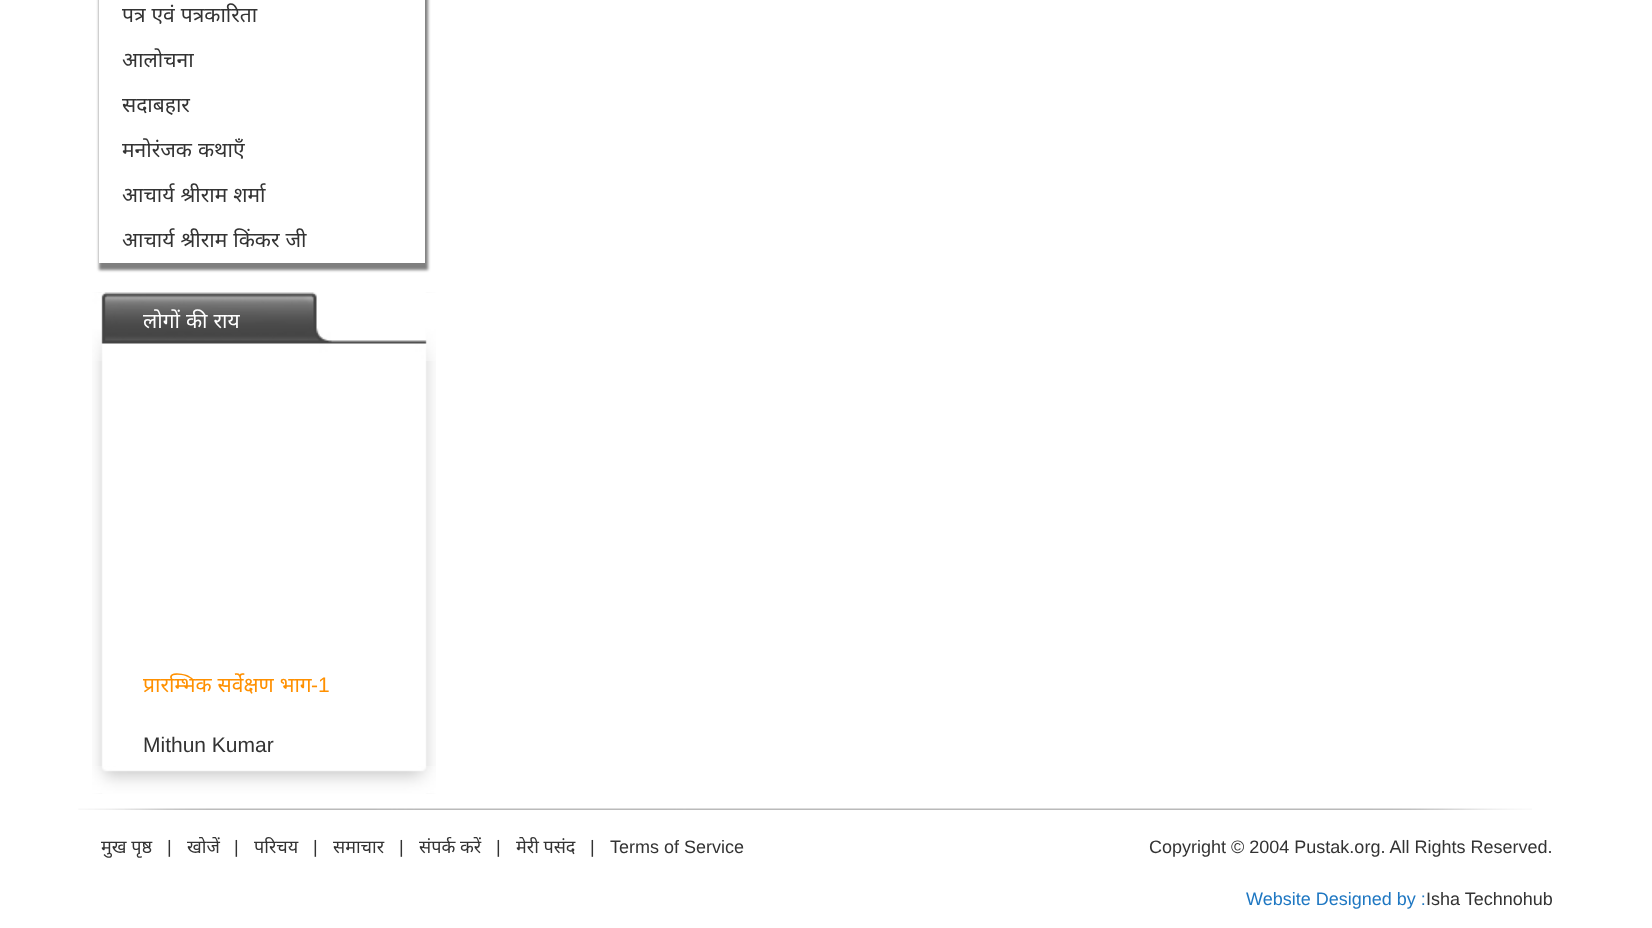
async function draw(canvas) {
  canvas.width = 1652;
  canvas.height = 928;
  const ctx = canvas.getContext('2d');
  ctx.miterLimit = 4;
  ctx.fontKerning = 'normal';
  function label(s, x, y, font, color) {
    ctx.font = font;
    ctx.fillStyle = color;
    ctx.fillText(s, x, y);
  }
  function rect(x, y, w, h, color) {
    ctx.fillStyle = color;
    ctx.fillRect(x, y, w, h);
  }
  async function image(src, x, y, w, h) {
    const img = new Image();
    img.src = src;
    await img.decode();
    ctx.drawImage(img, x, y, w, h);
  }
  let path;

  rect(0, 0, 1652, 928, '#fff');
  ctx.save();
  path = new Path2D('M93 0H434V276H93ZM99-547H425V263H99Z');
  ctx.clip(path, 'evenodd');
  ctx.fillStyle = '#2a292999';
  ctx.filter = 'blur(1.5px)';
  ctx.beginPath();
  ctx.rect(99, -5, 329, 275);
  ctx.fill();
  ctx.filter = 'none';
  ctx.restore();
  ctx.wordSpacing = '0.5px';
  label('पत्र एवं पत्रकारिता', 122, 22, '21px Noto Sans', '#333');
  ctx.wordSpacing = '0px';
  label('आलोचना', 122, 67, '21px Noto Sans', '#333');
  label('सदाबहार', 122, 112, '21px Noto Sans', '#333');
  ctx.wordSpacing = '0.5px';
  label('मनोरंजक कथाएँ', 122, 157, '21px Noto Sans', '#333');
  label('आचार्य श्रीराम शर्मा', 122, 202, '21px Noto Sans', '#333');
  label('आचार्य श्रीराम किंकर जी', 122, 247, '21px Noto Sans', '#333');
  await image('assets/img1.png', 92, 292, 344, 502);
  await image('assets/img2.png', 92, 292, 344, 69);
  await image('assets/img3.png', 92, 766, 344, 28);
  label('लोगों की राय', 143, 328, '21px Noto Sans', '#fff');
  label('प्रारम्भिक सर्वेक्षण भाग', 143, 692, '21px Noto Sans', '#ff9000');
  ctx.wordSpacing = '0px';
  label('-1', 311, 692, '21px Liberation Sans', '#ff9000');
  label('Mithun Kumar', 143, 752, '21px Liberation Sans', '#333');
  await image('assets/img4.png', 78, 808, 1454, 2);
  label('मुख पृष्ठ', 101, 853, '18px Noto Sans', '#333');
  label('|', 167, 853, '18px Liberation Sans', '#333');
  label('खोजें', 187, 853, '18px Noto Sans', '#333');
  label('|', 234, 853, '18px Liberation Sans', '#333');
  label('परिचय', 254, 853, '18px Noto Sans', '#333');
  label('|', 313, 853, '18px Liberation Sans', '#333');
  label('समाचार', 333, 853, '18px Noto Sans', '#333');
  label('|', 399, 853, '18px Liberation Sans', '#333');
  label('संपर्क करें', 419, 853, '18px Noto Sans', '#333');
  label('|', 496, 853, '18px Liberation Sans', '#333');
  label('मेरी पसंद', 516, 853, '18px Noto Sans', '#333');
  label('|', 590, 853, '18px Liberation Sans', '#333');
  label('Terms of Service', 610, 853, '18px Liberation Sans', '#333');
  label('Copyright © 2004 Pustak.org. All Rights Reserved.', 1149, 853, '18px Liberation Sans', '#333');
  label('Website Designed by :', 1246, 905, '18px Liberation Sans', '#1e77c2');
  label('Isha Technohub', 1426, 905, '18px Liberation Sans', '#333');
}

draw(document.querySelector('canvas'));
